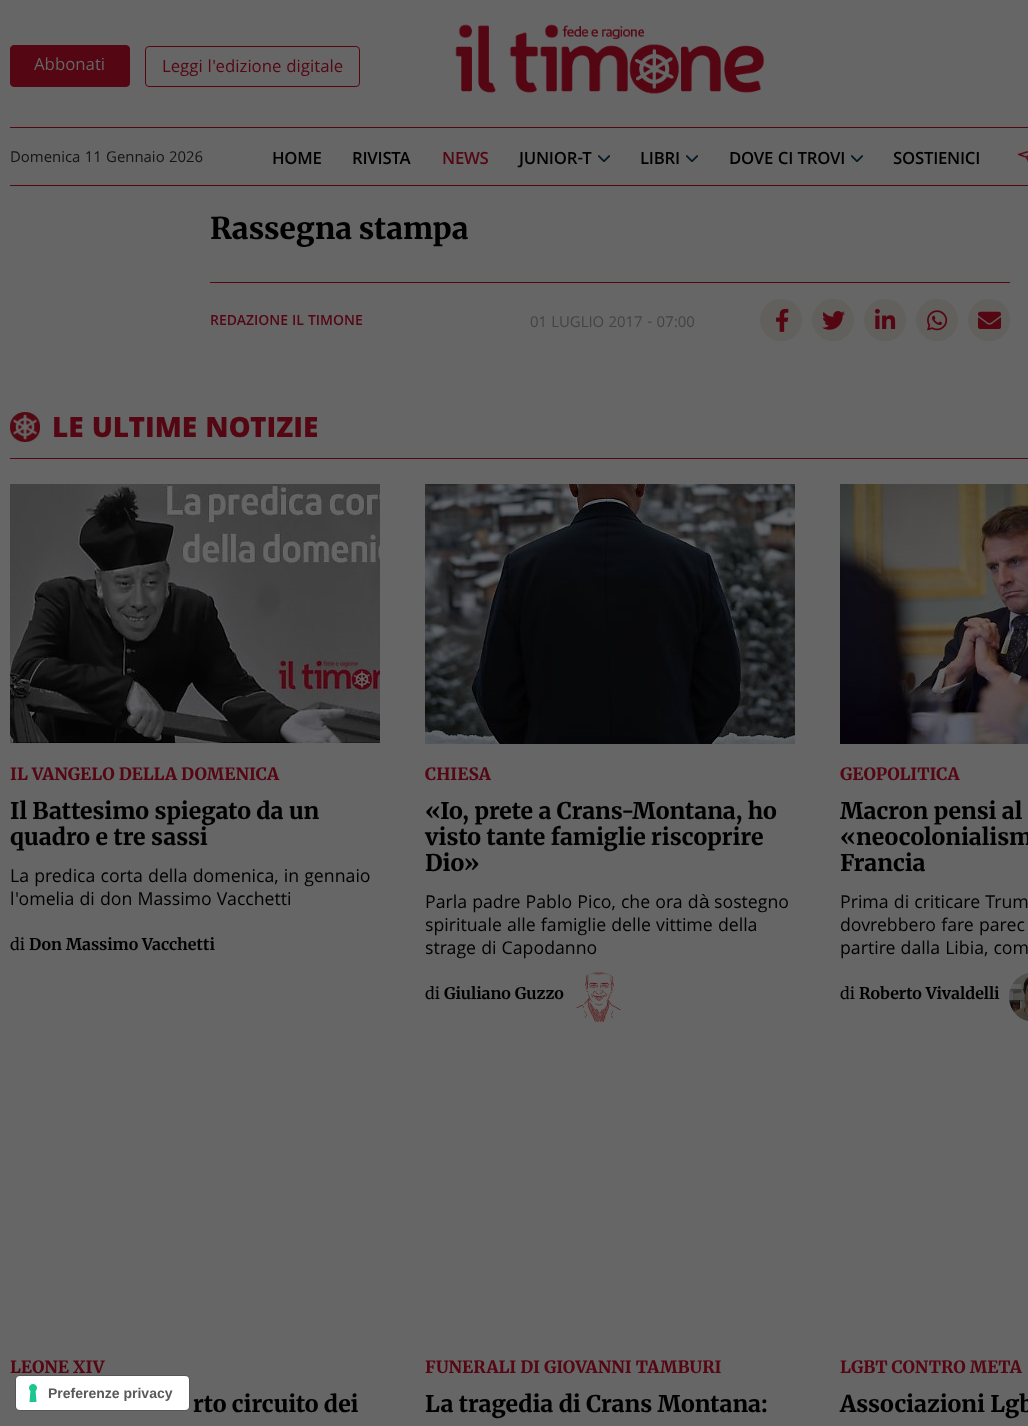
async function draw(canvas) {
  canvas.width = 1028;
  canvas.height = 1426;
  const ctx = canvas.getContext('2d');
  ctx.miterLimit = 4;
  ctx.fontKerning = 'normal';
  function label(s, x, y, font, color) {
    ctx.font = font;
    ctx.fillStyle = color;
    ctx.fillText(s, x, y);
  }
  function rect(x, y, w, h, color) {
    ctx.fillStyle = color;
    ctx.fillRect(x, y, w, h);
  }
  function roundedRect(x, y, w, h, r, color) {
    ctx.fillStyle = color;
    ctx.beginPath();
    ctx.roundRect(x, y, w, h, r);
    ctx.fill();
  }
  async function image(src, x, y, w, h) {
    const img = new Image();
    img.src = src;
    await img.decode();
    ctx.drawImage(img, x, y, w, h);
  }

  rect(0, 0, 1028, 1426, '#666');
  rect(10, 127, 1018, 1, '#550613');
  ctx.beginPath();
  ctx.roundRect(10.5, 45.5, 119, 41, 3.5);
  ctx.fill();
  ctx.strokeStyle = '#550613';
  ctx.stroke();
  label('Abbonati', 34, 70, '18px Khula', '#666');
  ctx.beginPath();
  ctx.roundRect(145.5, 46.5, 214, 40, 3.5);
  ctx.stroke();
  label('Leggi l\'edizione digitale', 162, 72, '18px Khula', '#550613');
  await image('assets/img1.png', 455, 24, 310, 70);
  rect(10, 185, 1018, 1, '#550613');
  label('Domenica 11 Gennaio 2026', 10, 162, '16px Khula', '#141414');
  ctx.letterSpacing = '-0.25px';
  label('HOME', 272, 164, '600 18px Khula', '#000');
  label('RIVISTA', 352, 164, '600 18px Khula', '#000');
  label('NEWS', 442, 164, '600 18px Khula', '#550613');
  label('JUNIOR-T', 519, 164, '600 18px Khula', '#000');
  await image('assets/img2.png', 598, 155, 12, 7);
  label('LIBRI', 640, 164, '600 18px Khula', '#000');
  await image('assets/img2.png', 686, 155, 12, 7);
  label('DOVE CI TROVI', 729, 164, '600 18px Khula', '#000');
  await image('assets/img2.png', 851, 155, 12, 7);
  label('SOSTIENICI', 893, 164, '600 18px Khula', '#000');
  await image('assets/img3.png', 1017, 151, 11, 11);
  ctx.letterSpacing = '0px';
  label('Rassegna stampa', 210, 239, '800 30px Merriweather', '#000');
  rect(210, 282, 800, 1, '#550613');
  label('REDAZIONE IL TIMONE', 210, 325, '600 15px Khula', '#550613');
  label('01 LUGLIO 2017 - 07:00', 530, 327, '16px Khula', '#434343');
  ctx.fillStyle = '#62605d';
  ctx.beginPath();
  ctx.arc(781, 320, 21, 0, 2 * Math.PI);
  ctx.fill();
  await image('assets/img4.png', 776, 308, 13, 24);
  ctx.beginPath();
  ctx.arc(833, 320, 21, 0, 2 * Math.PI);
  ctx.fill();
  await image('assets/img5.png', 822, 311, 23, 19);
  ctx.beginPath();
  ctx.arc(885, 320, 21, 0, 2 * Math.PI);
  ctx.fill();
  await image('assets/img6.png', 875, 308, 21, 21);
  ctx.beginPath();
  ctx.arc(937, 320, 21, 0, 2 * Math.PI);
  ctx.fill();
  await image('assets/img7.png', 927, 310, 21, 21);
  ctx.beginPath();
  ctx.arc(989, 320, 21, 0, 2 * Math.PI);
  ctx.fill();
  await image('assets/img8.png', 978, 311, 23, 18);
  rect(10, 458, 1018, 1, '#550613');
  await image('assets/img9.png', 10, 412, 30, 30);
  label('LE ULTIME NOTIZIE', 52, 437, '800 30px Khula', '#550613');
  await image('assets/img10.png', 10, 484, 370, 260);
  label('IL VANGELO DELLA DOMENICA', 10, 780, '800 17px "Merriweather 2"', '#550613');
  label('Il Battesimo spiegato da un', 10, 819, '800 23px "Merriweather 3"', '#000');
  label('quadro e tre sassi', 10, 845, '800 23px "Merriweather 3"', '#000');
  label('La predica corta della domenica, in gennaio', 10, 882, '19px Khula', '#000');
  label('l\'omelia di don Massimo Vacchetti', 10, 905, '19px Khula', '#000');
  label('di', 10, 950, '16px Merriweather', '#000');
  label('Don Massimo Vacchetti', 29, 950, 'bold 16px Merriweather', '#000');
  await image('assets/img11.png', 425, 484, 370, 260);
  label('CHIESA', 425, 780, '800 17px "Merriweather 2"', '#550613');
  label('«Io, prete a Crans-Montana, ho', 425, 819, '800 23px "Merriweather 3"', '#000');
  label('visto tante famiglie riscoprire', 425, 845, '800 23px "Merriweather 3"', '#000');
  label('Dio»', 425, 871, '800 23px "Merriweather 3"', '#000');
  label('Parla padre Pablo Pico, che ora d', 425, 908, '19px Khula', '#000');
  label('à', 699, 908, '19px Liberation Sans', '#000');
  label('sostegno', 714, 908, '19px Khula', '#000');
  label('spirituale alle famiglie delle vittime della', 425, 931, '19px Khula', '#000');
  label('strage di Capodanno', 425, 954, '19px Khula', '#000');
  label('di', 425, 999, '16px Merriweather', '#000');
  label('Giuliano Guzzo', 444, 999, 'bold 16px Merriweather', '#000');
  await image('assets/img12.png', 576, 972, 45, 50);
  await image('assets/img13.png', 840, 484, 188, 260);
  label('GEOPOLITICA', 840, 780, '800 17px "Merriweather 2"', '#550613');
  label('Macron pensi al', 840, 819, '800 23px "Merriweather 3"', '#000');
  label('«neocolonialism', 840, 845, '800 23px "Merriweather 3"', '#000');
  label('Francia', 840, 871, '800 23px "Merriweather 3"', '#000');
  label('Prima di criticare Trum', 840, 908, '19px Khula', '#000');
  label('dovrebbero fare parec', 840, 931, '19px Khula', '#000');
  label('partire dalla Libia, com', 840, 954, '19px Khula', '#000');
  label('di', 840, 999, '16px Merriweather', '#000');
  label('Roberto Vivaldelli', 859, 999, 'bold 16px Merriweather', '#000');
  await image('assets/img14.png', 1009, 973, 19, 48);
  label('LEONE XIV', 10, 1373, '800 17px "Merriweather 2"', '#550613');
  label('rto circuito dei', 193, 1412, '800 23px "Merriweather 3"', '#000');
  label('FUNERALI DI GIOVANNI TAMBURI', 425, 1373, '800 17px "Merriweather 2"', '#550613');
  label('La tragedia di Crans Montana:', 425, 1412, '800 23px "Merriweather 3"', '#000');
  label('LGBT CONTRO META', 840, 1373, '800 17px "Merriweather 2"', '#550613');
  label('Associazioni Lgb', 840, 1412, '800 23px "Merriweather 3"', '#000');
  ctx.beginPath();
  ctx.roundRect(15.5, 1375.5, 174, 35, 4.5);
  ctx.strokeStyle = '#00000026';
  ctx.stroke();
  roundedRect(16, 1376, 173, 34, 4, '#fff');
  await image('assets/img15.png', 29, 1384, 8, 18);
  label('Preferenze privacy', 48, 1398, 'bold 14px Liberation Sans', '#595959');
}

draw(document.querySelector('canvas'));
